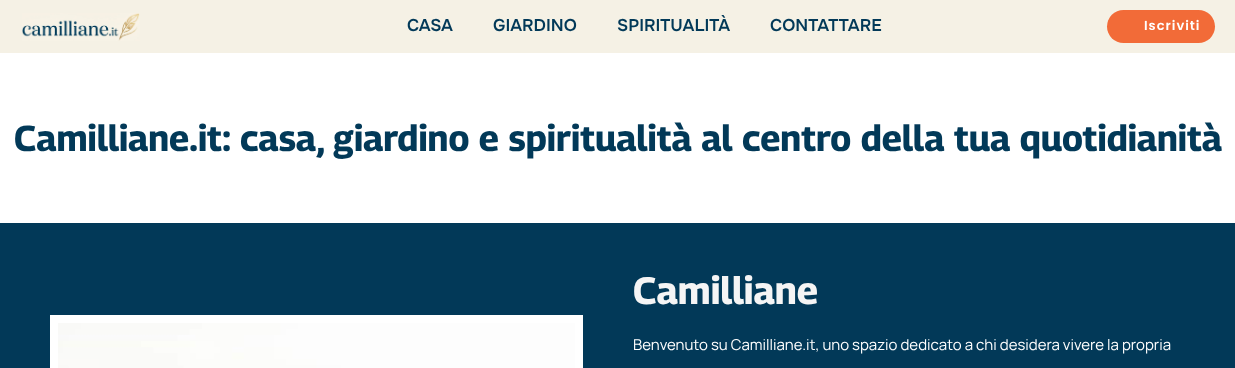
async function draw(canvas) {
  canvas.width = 1235;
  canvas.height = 368;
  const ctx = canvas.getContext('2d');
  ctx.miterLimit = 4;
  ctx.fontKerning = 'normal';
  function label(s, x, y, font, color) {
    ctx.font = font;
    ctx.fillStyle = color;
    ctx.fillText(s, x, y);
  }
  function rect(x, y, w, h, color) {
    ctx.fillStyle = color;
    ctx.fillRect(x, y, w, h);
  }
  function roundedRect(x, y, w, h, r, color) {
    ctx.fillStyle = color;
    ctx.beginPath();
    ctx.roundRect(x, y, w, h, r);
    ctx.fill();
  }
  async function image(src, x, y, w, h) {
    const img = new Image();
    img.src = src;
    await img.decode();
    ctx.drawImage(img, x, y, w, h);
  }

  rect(0, 0, 1235, 368, '#fff');
  rect(0, 0, 1235, 53, '#f5f1e5');
  await image('assets/img1.png', 22, 13, 118, 28);
  label('CASA', 407, 31, '600 17px Onest', '#023958');
  label('GIARDINO', 493, 31, '600 17px Onest', '#023958');
  label('SPIRITUALITÀ', 617, 31, '600 17px Onest', '#023958');
  label('CONTATTARE', 770, 31, '600 17px Onest', '#023958');
  roundedRect(1107, 10, 108, 33, 16.5, '#f26b38');
  ctx.letterSpacing = '1px';
  label('Iscriviti', 1144, 30, '600 13px Poppins', '#fff');
  ctx.letterSpacing = '0px';
  label('Camilliane.it: casa, giardino e spiritualità al centro della tua quotidianità', 14, 151, 'bold 36px Georama', '#023958');
  rect(0, 223, 1235, 145, '#023958');
  await image('assets/img2.png', 58, 323, 517, 45);
  ctx.strokeStyle = '#fff';
  ctx.lineWidth = 8;
  ctx.strokeRect(54, 319, 525, 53);
  label('Camilliane', 633, 304, 'bold 38px Georama', '#f5f5f5');
  label('Benvenuto su Camilliane.it, uno spazio dedicato a chi desidera vivere la propria', 633, 350, '15px Manrope', '#fff');
}

draw(document.querySelector('canvas'));
